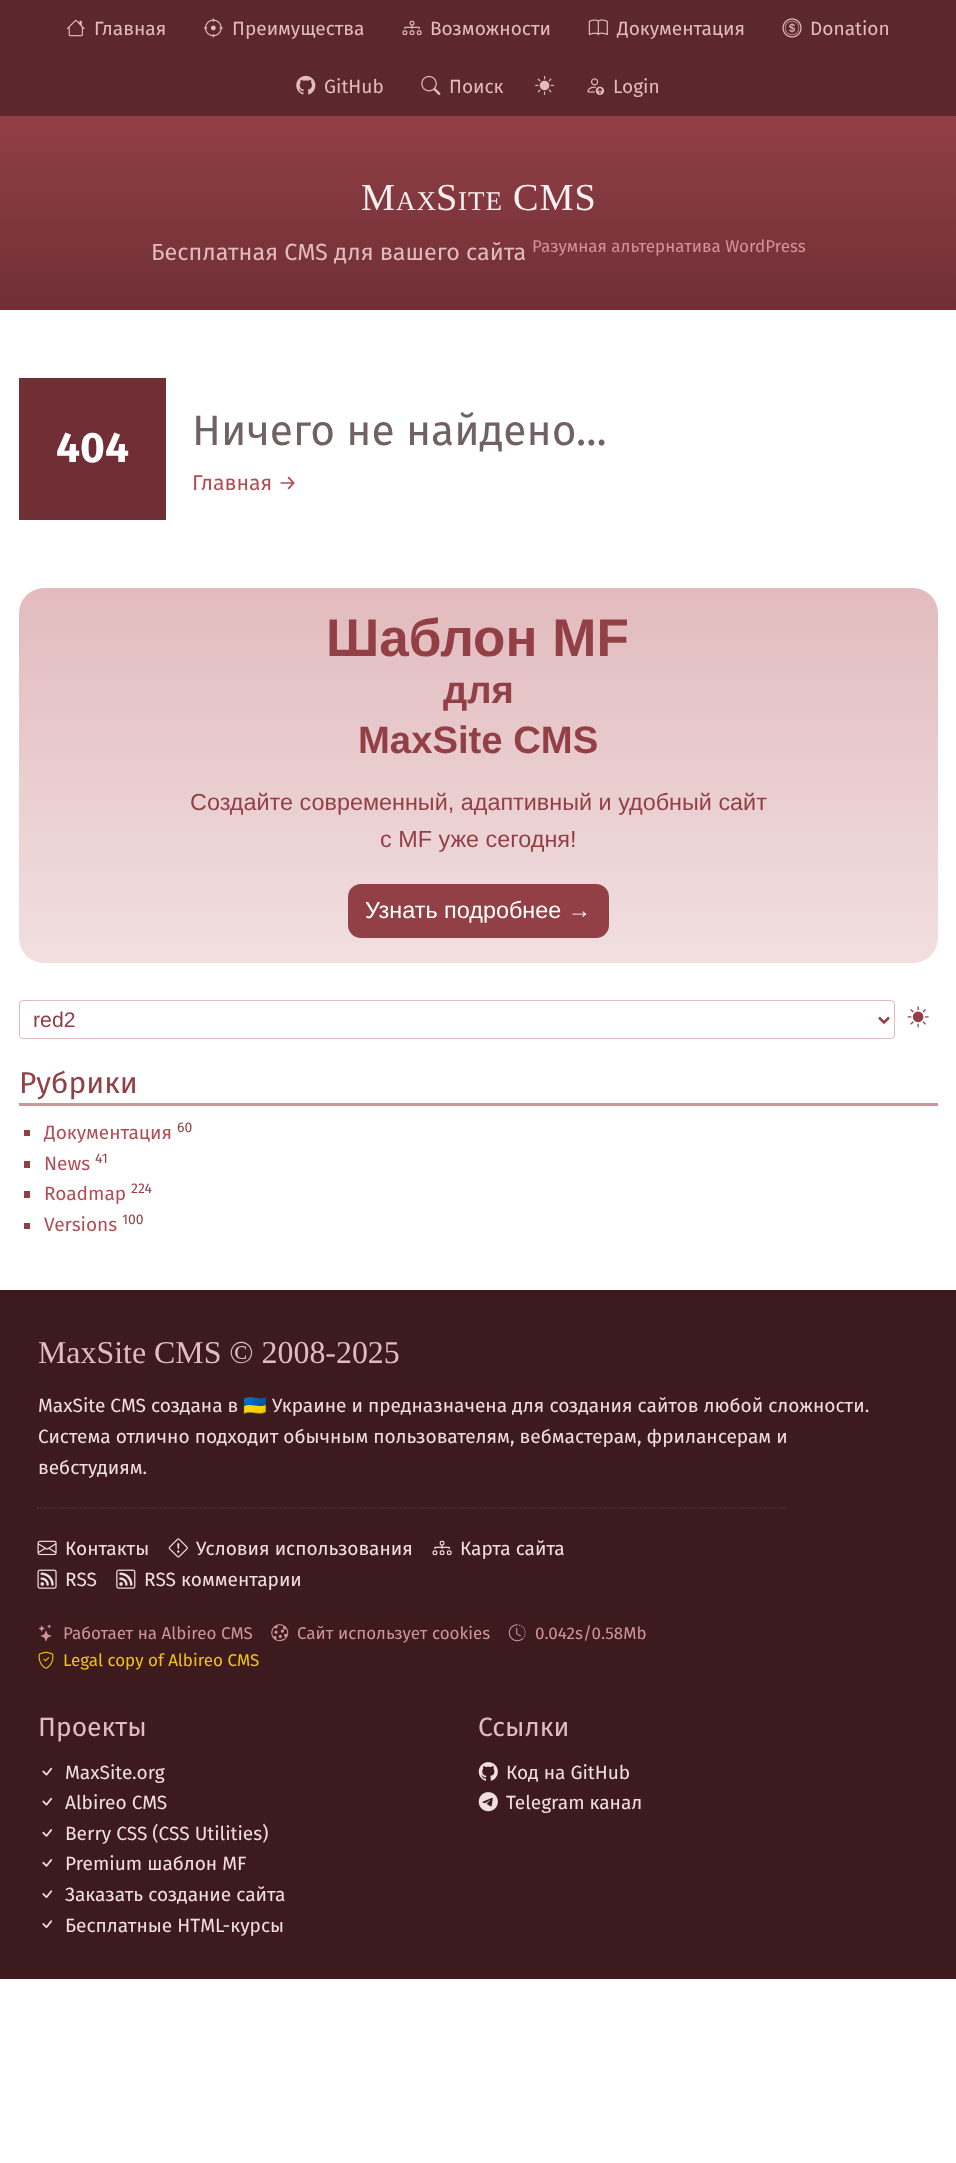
async function draw(canvas) {
  canvas.width = 956;
  canvas.height = 2163;
  const ctx = canvas.getContext('2d');
  ctx.miterLimit = 4;
  ctx.fontKerning = 'normal';
  function label(s, x, y, font, color) {
    ctx.font = font;
    ctx.fillStyle = color;
    ctx.fillText(s, x, y);
  }
  function rect(x, y, w, h, color) {
    ctx.fillStyle = color;
    ctx.fillRect(x, y, w, h);
  }
  function roundedRect(x, y, w, h, r, color) {
    ctx.fillStyle = color;
    ctx.beginPath();
    ctx.roundRect(x, y, w, h, r);
    ctx.fill();
  }
  async function image(src, x, y, w, h) {
    const img = new Image();
    img.src = src;
    await img.decode();
    ctx.drawImage(img, x, y, w, h);
  }
  let gradient, path;

  rect(0, 0, 956, 2163, '#fff');
  rect(0, 0, 956, 116, '#5d282c');
  await image('assets/img1.png', 66, 19, 19, 18);
  label('Главная', 94, 35, '19.1px Fira Sans', '#e2bbbe');
  await image('assets/img2.png', 203, 18, 20, 20);
  label('Преимущества', 232, 35, '19.1px Fira Sans', '#e2bbbe');
  await image('assets/img3.png', 402, 20, 20, 16);
  label('Возможности', 430, 35, '19.1px Fira Sans', '#e2bbbe');
  await image('assets/img4.png', 588, 19, 20, 17);
  label('Документация', 617, 35, '19.1px Fira Sans', '#e2bbbe');
  await image('assets/img5.png', 782, 18, 20, 20);
  label('Donation', 810, 35, '19.1px Fira Sans', '#e2bbbe');
  await image('assets/img6.png', 296, 75, 20, 20);
  label('GitHub', 324, 93, '19.1px Fira Sans', '#e2bbbe');
  await image('assets/img7.png', 421, 75, 20, 20);
  label('Поиск', 449, 93, '19.1px Fira Sans', '#e2bbbe');
  await image('assets/img8.png', 535, 75, 20, 20);
  await image('assets/img9.png', 587, 78, 18, 17);
  label('Login', 613, 93, '19.1px Fira Sans', '#e2bbbe');
  gradient = ctx.createLinearGradient(478, 310, 478, 116);
  gradient.addColorStop(0, '#6f2f35');
  gradient.addColorStop(1, '#923f46');
  ctx.fillStyle = gradient;
  ctx.fillRect(0, 116, 956, 194);
  ctx.letterSpacing = '1px';
  label('M', 361, 210, '38.25px Liberation Serif', '#f9f1f1');
  label('AX', 396, 210, '27px Liberation Serif', '#f9f1f1');
  label('S', 436, 210, '38.25px Liberation Serif', '#f9f1f1');
  label('ITE', 458, 210, '27px Liberation Serif', '#f9f1f1');
  label('CMS', 513, 210, '38.25px Liberation Serif', '#f9f1f1');
  ctx.letterSpacing = '0px';
  label('Бесплатная CMS для вашего сайта', 151, 260, '23.4px Fira Sans', '#e2bbbe');
  label('Разумная альтернатива WordPress', 532, 252, '17px Fira Sans', '#d19499');
  rect(19, 378, 147, 142, '#6f2f35');
  label('404', 56, 462, 'bold 42.5px Fira Sans', '#fff');
  label('Ничего не найдено...', 192, 445, '42.5px Fira Sans', '#706162');
  label('Главная →', 192, 490, '21.25px Fira Sans', '#b34d55');
  gradient = ctx.createLinearGradient(478, 963, 478, 588);
  gradient.addColorStop(0, '#f1dfe0');
  gradient.addColorStop(1, '#e2bbbe');
  ctx.fillStyle = gradient;
  ctx.beginPath();
  ctx.roundRect(19, 588, 919, 375, 25);
  ctx.fill();
  label('Шаблон MF', 326, 656, 'bold 53px Liberation Sans', '#923f46');
  label('для', 443, 703, 'bold 38.25px Liberation Sans', '#923f46');
  label('MaxSite CMS', 358, 753, 'bold 38.25px Liberation Sans', '#923f46');
  label('Создайте современный, адаптивный и удобный сайт', 190, 810, '23.4px Liberation Sans', '#923f46');
  label('с MF уже сегодня!', 380, 847, '23.4px Liberation Sans', '#923f46');
  roundedRect(348, 884, 261, 54, 13, '#923f46');
  label('Узнать подробнее →', 365, 918, '23.4px Liberation Sans', '#fff');
  ctx.beginPath();
  ctx.roundRect(19.5, 1000.5, 875, 38, 3.5);
  ctx.strokeStyle = '#e2bbbe';
  ctx.stroke();
  path = new Path2D('M879 1017.5L884 1022.5L889 1017.5');
  ctx.strokeStyle = '#923f46';
  ctx.lineWidth = 2.5;
  ctx.stroke(path);
  label('red2', 33, 1027, '21.25px Liberation Sans', '#923f46');
  await image('assets/img10.png', 907, 1006, 22, 22);
  rect(19, 1103, 919, 3, '#d19499');
  label('Рубрики', 19, 1093, '30px Fira Sans', '#923f46');
  rect(24, 1130, 6, 6, '#923f46');
  label('Документация', 44, 1139, '19.1px Fira Sans', '#b34d55');
  label('60', 177, 1132, '14px Fira Sans', '#923f46');
  rect(24, 1161, 6, 7, '#923f46');
  label('News', 44, 1170, '19.1px Fira Sans', '#b34d55');
  label('41', 95, 1163, '14px Fira Sans', '#923f46');
  rect(24, 1191, 6, 7, '#923f46');
  label('Roadmap', 44, 1200, '19.1px Fira Sans', '#b34d55');
  label('224', 131, 1193, '14px Fira Sans', '#923f46');
  rect(24, 1223, 6, 6, '#923f46');
  label('Versions', 44, 1231, '19.1px Fira Sans', '#b34d55');
  label('100', 122, 1224, '14px Fira Sans', '#923f46');
  rect(0, 1290, 956, 689, '#3d1a1d');
  label('MaxSite CMS © 2008-2025', 38, 1363, '31.9px Liberation Serif', '#e2bbbe');
  label('MaxSite CMS создана в', 38, 1412, '19.1px Fira Sans', '#f1dfe0');
  label('🇺🇦', 243, 1412, '19.1px Noto Color Emoji', '#f1dfe0');
  label('Украине и предназначена для создания сайтов любой сложности.', 272, 1412, '19.1px Fira Sans', '#f1dfe0');
  label('Система отлично подходит обычным пользователям, вебмастерам, фрилансерам и', 38, 1443, '19.1px Fira Sans', '#f1dfe0');
  label('вебстудиям.', 38, 1474, '19.1px Fira Sans', '#f1dfe0');
  path = new Path2D('M37.5 1508H787.5');
  ctx.strokeStyle = '#554a4a';
  ctx.lineWidth = 1.2;
  ctx.setLineDash([1.25, 1.25]);
  ctx.stroke(path);
  await image('assets/img11.png', 37, 1540, 20, 16);
  label('Контакты', 65, 1555, '19.1px Fira Sans', '#f1dfe0');
  await image('assets/img12.png', 168, 1538, 20, 20);
  label('Условия использования', 196, 1555, '19.1px Fira Sans', '#f1dfe0');
  await image('assets/img13.png', 432, 1540, 20, 16);
  label('Карта сайта', 460, 1555, '19.1px Fira Sans', '#f1dfe0');
  await image('assets/img14.png', 37, 1569, 20, 20);
  label('RSS', 65, 1586, '19.1px Fira Sans', '#f1dfe0');
  await image('assets/img15.png', 116, 1569, 20, 20);
  label('RSS комментарии', 144, 1586, '19.1px Fira Sans', '#f1dfe0');
  await image('assets/img16.png', 38, 1624, 14, 18);
  label('Работает на Albireo CMS', 63, 1639, '17px Fira Sans', '#d19499');
  await image('assets/img17.png', 271, 1624, 18, 18);
  label('Сайт использует cookies', 297, 1639, '17px Fira Sans', '#d19499');
  await image('assets/img18.png', 508, 1624, 18, 18);
  label('0.042s/0.58Mb', 535, 1639, '17px Fira Sans', '#d19499');
  await image('assets/img19.png', 38, 1651, 16, 18);
  label('Legal copy of Albireo CMS', 63, 1666, '17px Fira Sans', '#f0c30f');
  label('Проекты', 38, 1736, '26.5px Fira Sans', '#e2bbbe');
  await image('assets/img20.png', 42, 1767, 11, 9);
  label('MaxSite.org', 65, 1779, '19.1px Fira Sans', '#f1dfe0');
  await image('assets/img20.png', 42, 1797, 11, 9);
  label('Albireo CMS', 65, 1809, '19.1px Fira Sans', '#f1dfe0');
  await image('assets/img21.png', 42, 1829, 11, 8);
  label('Berry CSS (CSS Utilities)', 65, 1840, '19.1px Fira Sans', '#f1dfe0');
  await image('assets/img21.png', 42, 1859, 11, 8);
  label('Premium шаблон MF', 65, 1870, '19.1px Fira Sans', '#f1dfe0');
  await image('assets/img22.png', 42, 1890, 11, 8);
  label('Заказать создание сайта', 65, 1901, '19.1px Fira Sans', '#f1dfe0');
  await image('assets/img22.png', 42, 1920, 11, 8);
  label('Бесплатные НТML-курсы', 65, 1932, '19.1px Fira Sans', '#f1dfe0');
  label('Ссылки', 478, 1736, '26.5px Fira Sans', '#e2bbbe');
  await image('assets/img23.png', 478, 1762, 20, 19);
  label('Код на GitHub', 506, 1779, '19.1px Fira Sans', '#f1dfe0');
  await image('assets/img24.png', 478, 1792, 20, 20);
  label('Telegram канал', 506, 1809, '19.1px Fira Sans', '#f1dfe0');
}

draw(document.querySelector('canvas'));
